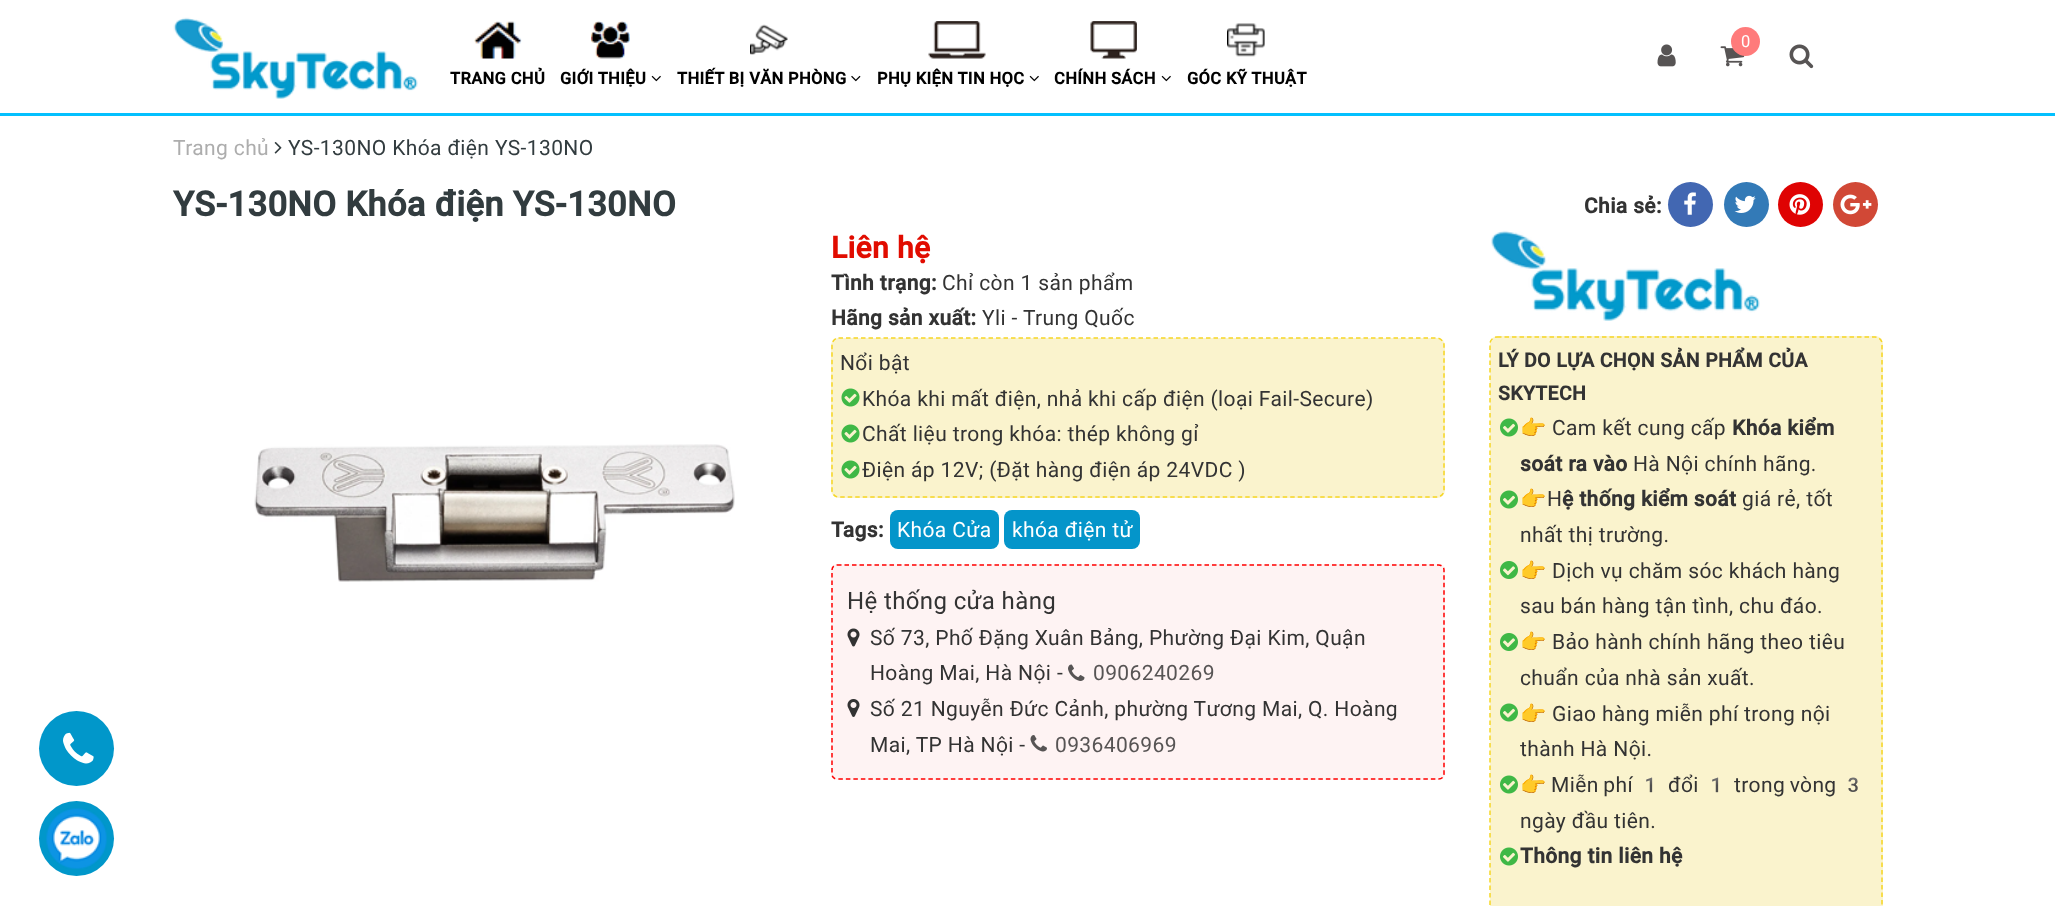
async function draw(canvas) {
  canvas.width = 2055;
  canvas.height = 906;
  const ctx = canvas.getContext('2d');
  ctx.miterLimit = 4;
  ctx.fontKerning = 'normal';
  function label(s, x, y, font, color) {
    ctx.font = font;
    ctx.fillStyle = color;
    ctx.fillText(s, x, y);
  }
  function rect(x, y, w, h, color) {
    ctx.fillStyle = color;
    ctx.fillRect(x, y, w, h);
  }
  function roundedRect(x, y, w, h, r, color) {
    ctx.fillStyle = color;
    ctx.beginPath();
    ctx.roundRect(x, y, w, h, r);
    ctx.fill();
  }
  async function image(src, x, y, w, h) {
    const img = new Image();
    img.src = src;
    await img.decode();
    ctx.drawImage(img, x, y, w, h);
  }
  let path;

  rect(0, 0, 2055, 906, '#fff');
  rect(0, 113, 2055, 3, '#03c0fe');
  await image('assets/img1.png', 173, 17, 245, 82);
  await image('assets/img2.png', 1720, 46, 25, 21);
  ctx.fillStyle = '#ff7b7b';
  ctx.beginPath();
  ctx.arc(1745.5, 41.5, 14.5, 0, 2 * Math.PI);
  ctx.fill();
  ctx.letterSpacing = '0.38px';
  label('0', 1741, 47, '16.5px Roboto', '#fff');
  await image('assets/img3.png', 1657, 44, 19, 23);
  await image('assets/img4.png', 1789, 44, 25, 25);
  await image('assets/img5.png', 474, 21, 48, 38);
  label('TRANG CHỦ', 450, 84, 'bold 16.5px Roboto', '#010101');
  await image('assets/img6.png', 591, 21, 39, 38);
  label('GIỚI THIỆU', 560, 84, 'bold 16.5px Roboto', '#010101');
  await image('assets/img7.png', 651, 75, 10, 7);
  await image('assets/img8.png', 750, 24, 38, 31);
  label('THIẾT BỊ VĂN PHÒNG', 677, 84, 'bold 16.5px Roboto', '#010101');
  await image('assets/img9.png', 851, 75, 10, 7);
  await image('assets/img10.png', 928, 21, 58, 38);
  label('PHỤ KIỆN TIN HỌC', 877, 84, 'bold 16.5px Roboto', '#010101');
  await image('assets/img7.png', 1029, 75, 10, 7);
  await image('assets/img11.png', 1090, 21, 47, 38);
  label('CHÍNH SÁCH', 1054, 84, 'bold 16.5px Roboto', '#010101');
  await image('assets/img7.png', 1161, 75, 10, 7);
  await image('assets/img12.png', 1227, 23, 38, 34);
  label('GÓC KỸ THUẬT', 1187, 84, 'bold 16.5px Roboto', '#010101');
  label('Trang chủ', 173, 155, '21px Roboto', '#adadad');
  await image('assets/img13.png', 274, 142, 8, 12);
  label('YS-130NO Khóa điện YS-130NO', 288, 155, '21px Roboto', '#323c3f');
  ctx.fillStyle = '#0197ca';
  ctx.beginPath();
  ctx.arc(76.5, 748.5, 37.5, 0, 2 * Math.PI);
  ctx.fill();
  await image('assets/img14.png', 63, 732, 31, 32);
  ctx.letterSpacing = '0.35px';
  label('YS-130NO Khóa điện YS-130NO', 173, 216, 'bold 34.5px Roboto', '#323c3f');
  ctx.letterSpacing = '0.38px';
  label('Chia sẻ:', 1584, 213, 'bold 21px Roboto', '#333');
  ctx.fillStyle = '#4267b2';
  ctx.beginPath();
  ctx.arc(1690.5, 204.5, 22.5, 0, 2 * Math.PI);
  ctx.fill();
  await image('assets/img15.png', 1684, 192, 12, 23);
  ctx.fillStyle = '#337ab7';
  ctx.beginPath();
  ctx.arc(1746.5, 204.5, 22.5, 0, 2 * Math.PI);
  ctx.fill();
  await image('assets/img16.png', 1734, 195, 22, 18);
  ctx.fillStyle = '#df0303';
  ctx.beginPath();
  ctx.arc(1800.5, 204.5, 22.5, 0, 2 * Math.PI);
  ctx.fill();
  await image('assets/img17.png', 1789, 194, 22, 21);
  ctx.fillStyle = '#d14836';
  ctx.beginPath();
  ctx.arc(1855.5, 204.5, 22.5, 0, 2 * Math.PI);
  ctx.fill();
  await image('assets/img18.png', 1840, 194, 32, 21);
  await image('assets/img19.png', 254, 444, 481, 138);
  label('Liên hệ', 831, 258, 'bold 30px Roboto', '#e10c00');
  label('Tình trạng:', 831, 290, 'bold 21px Roboto', '#333');
  label('Chỉ còn 1 sản phẩm', 942, 290, '21px Roboto', '#333');
  label('Hãng sản xuất:', 831, 325, 'bold 21px Roboto', '#333');
  label('Yli - Trung Quốc', 982, 325, '21px Roboto', '#333');
  roundedRect(831, 338, 614, 160, 8, '#faf3cd');
  path = new Path2D('M838.5 338H1437C1440.5 338 1444 341.5 1444 345V490.5C1444 494 1440.5 497 1437 497H838.5C835 497 832 494 832 490.5V345C832 341.5 835 338 838.5 338Z');
  ctx.strokeStyle = '#f6d624';
  ctx.lineWidth = 1.5;
  ctx.setLineDash([4.5, 3]);
  ctx.stroke(path);
  label('Nổi bật', 840, 370, '21px Roboto', '#333');
  await image('assets/img20.png', 841, 388, 19, 19);
  label('Khóa khi mất điện, nhả khi cấp điện (loại Fail-Secure)', 862, 406, '21px Roboto', '#333');
  await image('assets/img20.png', 841, 424, 19, 19);
  label('Chất liệu trong khóa: thép không gỉ', 862, 441, '21px Roboto', '#333');
  await image('assets/img20.png', 841, 460, 19, 19);
  label('Điện áp 12V; (Đặt hàng điện áp 24VDC )', 862, 477, '21px Roboto', '#333');
  label('Tags:', 831, 537, 'bold 21px Roboto', '#333');
  roundedRect(890, 510, 109, 39, 8, '#0495ca');
  label('Khóa Cửa', 897, 537, '21px Roboto', '#fff');
  roundedRect(1004, 510, 136, 39, 8, '#0495ca');
  label('khóa điện tử', 1012, 537, '21px Roboto', '#fff');
  roundedRect(831, 564, 614, 216, 6, '#fef3f3');
  path = new Path2D('M837 565H1438.5C1441.5 565 1444 567 1444 570V774C1444 777 1441.5 779 1438.5 779H837C834 779 832 777 832 774V570C832 567 834 565 837 565Z');
  ctx.strokeStyle = '#f00';
  ctx.stroke(path);
  label('Hệ thống cửa hàng', 847, 609, '24px Roboto', '#333');
  await image('assets/img21.png', 847, 628, 13, 19);
  label('Số 73, Phố Đặng Xuân Bảng, Phường Đại Kim, Quận', 870, 645, '21px Roboto', '#333');
  label('Hoàng Mai, Hà Nội -', 870, 680, '21px Roboto', '#333');
  await image('assets/img22.png', 1068, 664, 17, 17);
  label('0906240269', 1093, 680, '21px Roboto', '#575454');
  await image('assets/img23.png', 847, 699, 13, 18);
  label('Số 21 Nguyễn Đức Cảnh, phường Tương Mai, Q. Hoàng', 870, 716, '21px Roboto', '#333');
  label('Mai, TP Hà Nội -', 870, 752, '21px Roboto', '#333');
  await image('assets/img24.png', 1030, 735, 17, 17);
  label('0936406969', 1055, 752, '21px Roboto', '#575454');
  await image('assets/img25.png', 1491, 230, 269, 91);
  roundedRect(1490, 336, 393, 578, 8, '#faf3cd');
  path = new Path2D('M1497 337H1875C1878.5 337 1882 340 1882 343.5V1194C1882 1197.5 1878.5 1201 1875 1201H1497C1493.5 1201 1490 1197.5 1490 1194V343.5C1490 340 1493.5 337 1497 337Z');
  ctx.strokeStyle = '#f6d624';
  ctx.stroke(path);
  label('LÝ DO LỰA CHỌN SẢN PHẨM CỦA', 1498, 367, 'bold 19.5px Roboto', '#333');
  label('SKYTECH', 1498, 400, 'bold 19.5px Roboto', '#333');
  await image('assets/img26.png', 1500, 418, 18, 19);
  label('👉', 1520, 435, '21px Noto Color Emoji', '#333');
  label('Cam kết cung cấp', 1552, 435, '21px Roboto', '#333');
  label('Khóa kiểm', 1732, 435, 'bold 21px Roboto', '#333');
  label('soát ra vào', 1520, 471, 'bold 21px Roboto', '#333');
  label('Hà Nội chính hãng.', 1633, 471, '21px Roboto', '#333');
  await image('assets/img26.png', 1500, 490, 18, 19);
  label('👉', 1520, 506, '21px Noto Color Emoji', '#333');
  label('H', 1547, 506, '21px Roboto', '#333');
  label('ệ thống kiểm soát', 1562, 506, 'bold 21px Roboto', '#333');
  label('giá rẻ, tốt', 1742, 506, '21px Roboto', '#333');
  label('nhất thị trường.', 1520, 542, '21px Roboto', '#333');
  await image('assets/img27.png', 1500, 561, 18, 18);
  label('👉', 1520, 578, '21px Noto Color Emoji', '#333');
  label('Dịch vụ chăm sóc khách hàng', 1552, 578, '21px Roboto', '#333');
  label('sau bán hàng tận tình, chu đáo.', 1520, 613, '21px Roboto', '#333');
  await image('assets/img27.png', 1500, 633, 18, 18);
  label('👉', 1520, 649, '21px Noto Color Emoji', '#333');
  label('Bảo hành chính hãng theo tiêu', 1552, 649, '21px Roboto', '#333');
  label('chuẩn của nhà sản xuất.', 1520, 685, '21px Roboto', '#333');
  await image('assets/img26.png', 1500, 703, 18, 19);
  label('👉', 1520, 721, '21px Noto Color Emoji', '#333');
  label('Giao hàng miễn phí trong nội', 1552, 721, '21px Roboto', '#333');
  label('thành Hà Nội.', 1520, 756, '21px Roboto', '#333');
  await image('assets/img26.png', 1500, 775, 18, 19);
  label('👉', 1520, 792, '21px Noto Color Emoji', '#333');
  ctx.wordSpacing = '-1px';
  label('Miễn phí', 1551, 792, '21px Roboto', '#333');
  ctx.wordSpacing = '0px';
  label('1', 1637, 792, '21px Noto Color Emoji', '#333');
  label('đổi', 1668, 792, '21px Roboto', '#333');
  label('1', 1703, 792, '21px Noto Color Emoji', '#333');
  ctx.wordSpacing = '-1px';
  label('trong vòng', 1734, 792, '21px Roboto', '#333');
  ctx.wordSpacing = '0px';
  label('3', 1840, 792, '21px Noto Color Emoji', '#333');
  label('ngày đầu tiên.', 1520, 828, '21px Roboto', '#333');
  await image('assets/img26.png', 1500, 847, 18, 19);
  label('Thông tin liên hệ', 1520, 863, 'bold 21px Roboto', '#333');
  ctx.fillStyle = '#0197ca';
  ctx.beginPath();
  ctx.arc(76.5, 838.5, 37.5, 0, 2 * Math.PI);
  ctx.fill();
  await image('assets/img28.png', 46, 808, 61, 61);
}

draw(document.querySelector('canvas'));
